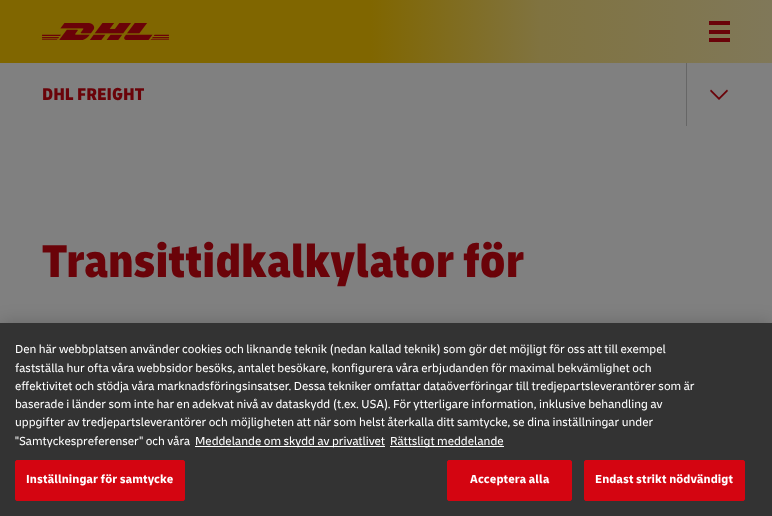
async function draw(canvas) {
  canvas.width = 772;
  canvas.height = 516;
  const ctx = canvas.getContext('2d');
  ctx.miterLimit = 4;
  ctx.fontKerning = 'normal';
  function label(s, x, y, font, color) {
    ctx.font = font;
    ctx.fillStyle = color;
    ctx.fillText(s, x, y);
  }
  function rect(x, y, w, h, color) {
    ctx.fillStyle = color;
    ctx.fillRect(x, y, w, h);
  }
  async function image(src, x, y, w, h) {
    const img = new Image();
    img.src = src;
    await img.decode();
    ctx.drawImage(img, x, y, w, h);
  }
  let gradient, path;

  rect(0, 0, 772, 516, '#808080');
  gradient = ctx.createLinearGradient(0, 32, 772, 31);
  gradient.addColorStop(0, '#806600');
  gradient.addColorStop(0.48, '#806600');
  gradient.addColorStop(0.7, '#807340');
  gradient.addColorStop(1, '#807859');
  ctx.fillStyle = gradient;
  ctx.fillRect(0, 0, 772, 63);
  await image('assets/img1.png', 42, 23, 127, 17);
  rect(709, 21, 21, 4, '#6a0309');
  rect(709, 30, 21, 4, '#6a0309');
  rect(709, 38, 21, 4, '#6a0309');
  label('DHL FREIGHT', 42, 100, '800 18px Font', '#6a0309');
  rect(686, 63, 1, 63, '#666');
  ctx.fillStyle = '#6a0309';
  path = new Path2D('M719 100L710 91L711 89.5L719 97.5L727 89.5L728 91Z');
  ctx.fill(path);
  label('Transittidkalkylator för', 42, 277, '800 48px Font', '#6a0309');
  ctx.fillStyle = '#00000033';
  ctx.filter = 'blur(9px)';
  ctx.beginPath();
  ctx.rect(0, 323, 772, 193);
  ctx.fill();
  ctx.filter = 'none';
  rect(0, 323, 772, 193, '#333');
  label('Den här webbplatsen använder cookies och liknande teknik (nedan kallad teknik) som gör det möjligt för oss att till exempel', 15, 353, '12.2px Font', '#fff');
  label('fastställa hur ofta våra webbsidor besöks, antalet besökare, konfigurera våra erbjudanden för maximal bekvämlighet och', 15, 372, '12.2px Font', '#fff');
  label('effektivitet och stödja våra marknadsföringsinsatser. Dessa tekniker omfattar dataöverföringar till tredjepartsleverantörer som är', 15, 390, '12.2px Font', '#fff');
  label('baserade i länder som inte har en adekvat nivå av dataskydd (t.ex. USA). För ytterligare information, inklusive behandling av', 15, 408, '12.2px Font', '#fff');
  label('uppgifter av tredjepartsleverantörer och möjligheten att när som helst återkalla ditt samtycke, se dina inställningar under', 15, 426, '12.2px Font', '#fff');
  label('"Samtyckespreferenser" och våra', 15, 445, '12.2px Font', '#fff');
  rect(195, 446, 190, 1, '#fff');
  label('Meddelande om skydd av privatlivet', 195, 445, '12.2px Font', '#fff');
  rect(390, 446, 114, 1, '#fff');
  label('Rättsligt meddelande', 390, 445, '12.2px Font', '#fff');
  ctx.fillStyle = '#d40511';
  ctx.beginPath();
  ctx.roundRect(15.5, 460.5, 169, 40, 1.5);
  ctx.fill();
  ctx.strokeStyle = '#d40511';
  ctx.stroke();
  ctx.letterSpacing = '0.1px';
  label('Inställningar för samtycke', 26, 483, 'bold 12.2px Font', '#fff');
  ctx.fillStyle = '#d40511';
  ctx.beginPath();
  ctx.roundRect(447.5, 460.5, 124, 40, 1.5);
  ctx.fill();
  ctx.stroke();
  label('Acceptera alla', 470, 483, 'bold 12.2px Font', '#fff');
  ctx.fillStyle = '#d40511';
  ctx.beginPath();
  ctx.roundRect(584.5, 460.5, 160, 40, 1.5);
  ctx.fill();
  ctx.stroke();
  label('Endast strikt nödvändigt', 595, 483, 'bold 12.2px Font', '#fff');
}

draw(document.querySelector('canvas'));
